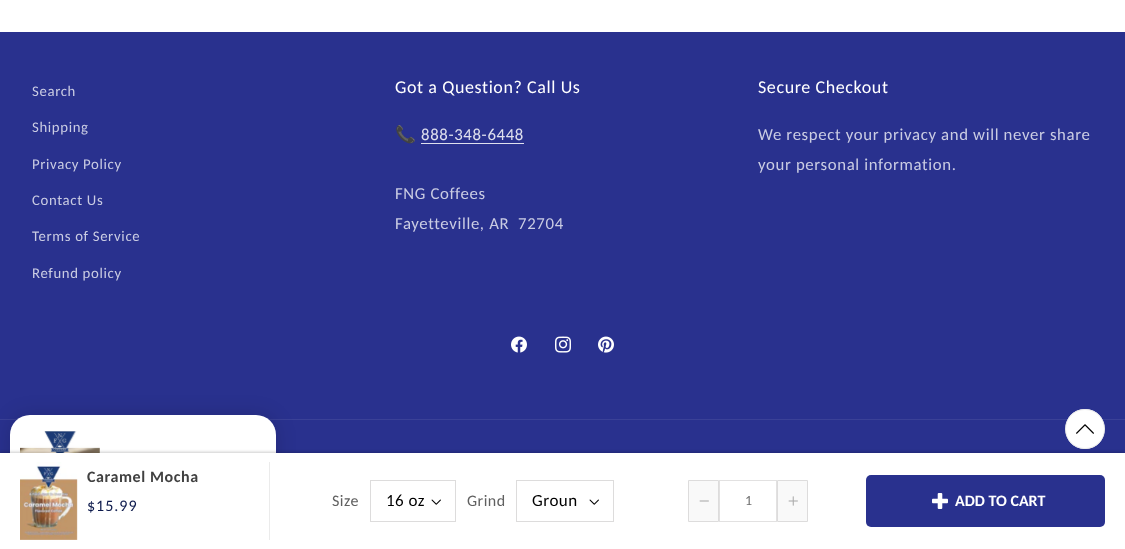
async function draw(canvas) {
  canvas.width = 1125;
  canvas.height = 549;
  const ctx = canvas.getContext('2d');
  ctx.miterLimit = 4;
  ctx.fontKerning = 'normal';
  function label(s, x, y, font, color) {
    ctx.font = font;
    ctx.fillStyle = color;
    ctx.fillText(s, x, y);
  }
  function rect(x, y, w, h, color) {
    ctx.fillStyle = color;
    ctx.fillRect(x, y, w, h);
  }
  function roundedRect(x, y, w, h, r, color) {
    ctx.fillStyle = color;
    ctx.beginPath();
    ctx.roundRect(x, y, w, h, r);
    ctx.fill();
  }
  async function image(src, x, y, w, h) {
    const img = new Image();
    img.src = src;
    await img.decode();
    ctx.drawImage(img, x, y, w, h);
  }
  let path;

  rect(0, 0, 1125, 549, '#fff');
  rect(0, 32, 1125, 421, '#29318e');
  ctx.letterSpacing = '0.65px';
  label('Search', 32, 96, '14.75px Carlito', '#cacce3');
  label('Shipping', 32, 132, '14.75px Carlito', '#cacce3');
  label('Privacy Policy', 32, 169, '14.75px Carlito', '#cacce3');
  label('Contact Us', 32, 205, '14.75px Carlito', '#cacce3');
  label('Terms of Service', 32, 241, '14.75px Carlito', '#cacce3');
  label('Refund policy', 32, 278, '14.75px Carlito', '#cacce3');
  ctx.letterSpacing = '0.6px';
  label('Got a Question? Call Us', 395, 93, '18px Carlito', '#fff');
  ctx.letterSpacing = '0.65px';
  label('📞', 395, 140, '16.75px Noto Color Emoji', '#cacce3');
  label('888-348-6448', 421, 140, '16.75px Carlito', '#dfe0ee');
  rect(421, 143, 103, 1, '#dfe0ee');
  label('FNG Coffees', 395, 199, '16.75px Carlito', '#cacce3');
  label('Fayetteville, AR  72704', 395, 229, '16.75px Carlito', '#cacce3');
  ctx.letterSpacing = '0.6px';
  label('Secure Checkout', 758, 93, '18px Carlito', '#fff');
  ctx.letterSpacing = '0.65px';
  label('We respect your privacy and will never share', 758, 140, '16.75px Carlito', '#cacce3');
  label('your personal information.', 758, 170, '16.75px Carlito', '#cacce3');
  await image('assets/img1.png', 511, 336, 16, 17);
  await image('assets/img2.png', 555, 336, 16, 17);
  await image('assets/img3.png', 598, 336, 16, 17);
  rect(0, 419, 1125, 1, '#3a4197');
  ctx.fillStyle = '#00000026';
  ctx.filter = 'blur(10px)';
  ctx.beginPath();
  ctx.roundRect(10, 415, 266, 124, 20);
  ctx.fill();
  ctx.filter = 'none';
  roundedRect(10, 415, 266, 124, 20, '#fff');
  await image('assets/img4.png', 20, 431, 80, 22);
  ctx.fillStyle = '#00000033';
  ctx.filter = 'blur(1.5px)';
  ctx.beginPath();
  ctx.rect(0, 452, 1125, 96);
  ctx.fill();
  ctx.filter = 'none';
  ctx.fillStyle = '#fff';
  path = new Path2D('M1085 449C1059 449 1059 409 1085 409C1111 409 1111 449 1085 449Z');
  ctx.fill(path);
  path = new Path2D('M1085 448.5C1074 448.5 1065.5 440 1065.5 429C1065.5 418 1074 409.5 1085 409.5C1096 409.5 1104.5 418 1104.5 429C1104.5 440 1096 448.5 1085 448.5Z');
  ctx.strokeStyle = '#ebebeb';
  ctx.stroke(path);
  await image('assets/img5.png', 1076, 424, 18, 10);
  rect(0, 453, 1125, 96, '#fff');
  rect(269, 462, 1, 78, '#ebebeb');
  await image('assets/img6.png', 20, 462, 58, 78);
  ctx.letterSpacing = '0.6px';
  label('Caramel Mocha', 87, 482, 'bold 16px Carlito', '#414141');
  ctx.letterSpacing = '1px';
  label('$15.99', 87, 511, '16px Carlito', '#0e1b4d');
  ctx.letterSpacing = '0.5px';
  label('Size', 332, 506, '16px Carlito', '#606060');
  ctx.strokeStyle = '#dddcdc';
  ctx.strokeRect(370.5, 480.5, 85, 41);
  label('16 oz', 386, 506, '17px Carlito', '#000');
  await image('assets/img7.png', 431, 499, 10, 6);
  label('Grind', 467, 506, '16px Carlito', '#606060');
  ctx.strokeRect(516.5, 480.5, 97, 41);
  label('Groun', 532, 506, '17px Carlito', '#000');
  await image('assets/img7.png', 589, 499, 10, 6);
  ctx.fillStyle = '#f9f9f9';
  ctx.beginPath();
  ctx.rect(688.5, 480.5, 30, 41);
  ctx.fill();
  ctx.stroke();
  await image('assets/img8.png', 699, 500, 10, 2);
  ctx.strokeStyle = '#e2e1e1';
  ctx.strokeRect(719.5, 480.5, 57, 41);
  ctx.letterSpacing = '0px';
  label('1', 745, 505, '14px Carlito', '#6f6f6f');
  ctx.fillStyle = '#f9f9f9';
  ctx.beginPath();
  ctx.rect(777.5, 480.5, 30, 41);
  ctx.fill();
  ctx.strokeStyle = '#dddcdc';
  ctx.stroke();
  await image('assets/img9.png', 788, 496, 10, 10);
  roundedRect(866, 475, 239, 52, 5, '#29318e');
  await image('assets/img10.png', 932, 493, 16, 16);
  label('ADD TO CART', 955, 506, 'bold 16px Carlito', '#fff');
}

draw(document.querySelector('canvas'));
